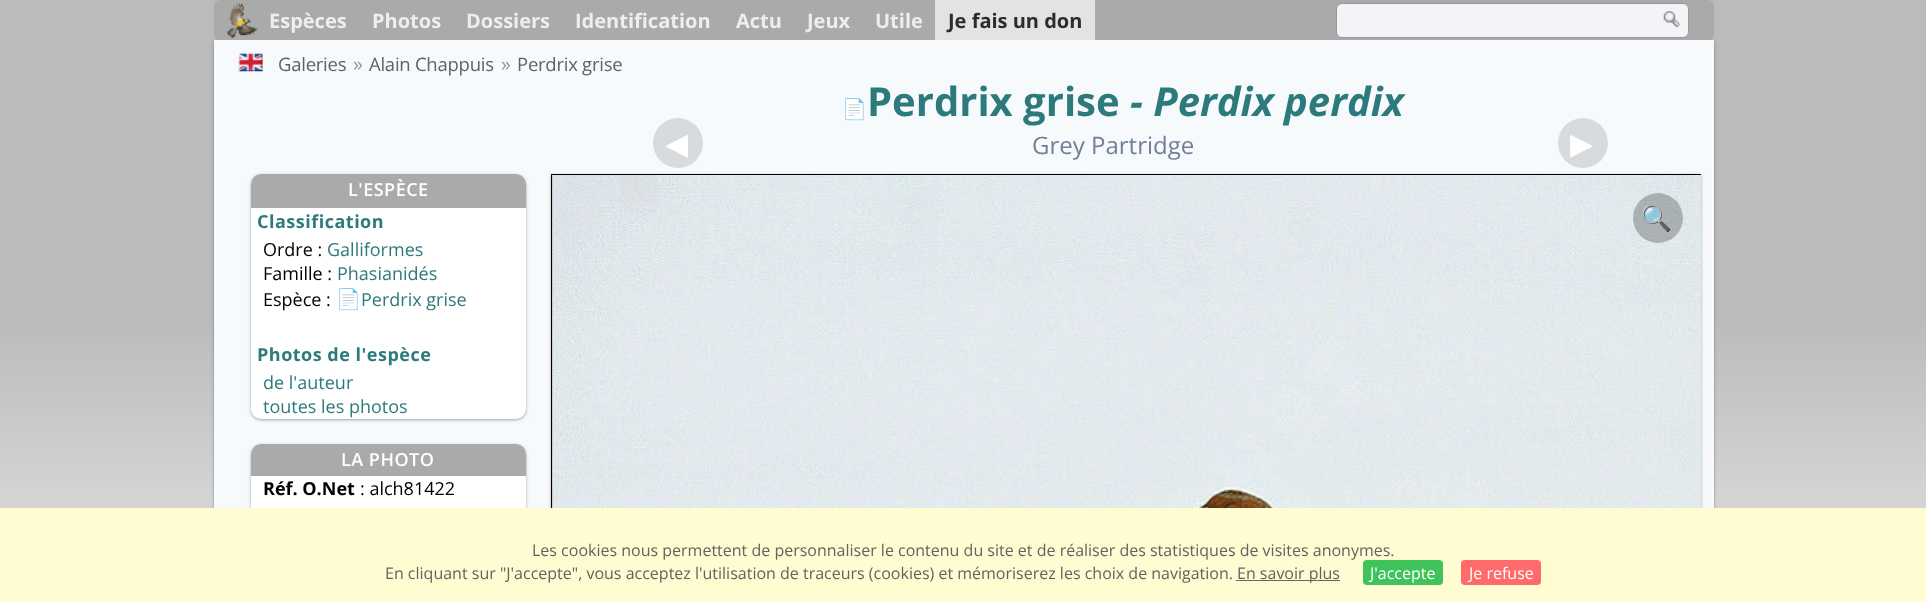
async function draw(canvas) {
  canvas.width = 1926;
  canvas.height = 602;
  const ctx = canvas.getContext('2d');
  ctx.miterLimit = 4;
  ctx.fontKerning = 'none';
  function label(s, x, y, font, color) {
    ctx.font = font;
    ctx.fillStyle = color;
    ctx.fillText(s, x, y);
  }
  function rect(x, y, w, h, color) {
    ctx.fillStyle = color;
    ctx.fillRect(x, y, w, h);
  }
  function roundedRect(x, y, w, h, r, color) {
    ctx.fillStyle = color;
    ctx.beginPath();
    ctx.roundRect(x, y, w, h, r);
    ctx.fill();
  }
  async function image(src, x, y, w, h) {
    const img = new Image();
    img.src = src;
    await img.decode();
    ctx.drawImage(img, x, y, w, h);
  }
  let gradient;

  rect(0, 0, 1926, 602, '#fff');
  gradient = ctx.createLinearGradient(963, 0, 963, 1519);
  gradient.addColorStop(0, '#bbb');
  gradient.addColorStop(0.21, '#bbb');
  gradient.addColorStop(0.37, '#ddd');
  gradient.addColorStop(0.9, '#fff');
  gradient.addColorStop(1, '#fff');
  ctx.fillStyle = gradient;
  ctx.fillRect(0, 0, 1926, 508);
  ctx.fillStyle = '#0000003d';
  ctx.filter = 'blur(1px)';
  ctx.beginPath();
  ctx.rect(214, 41, 1500, 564);
  ctx.fill();
  ctx.filter = 'none';
  ctx.fillStyle = '#0000001f';
  ctx.filter = 'blur(2px)';
  ctx.beginPath();
  ctx.rect(214, 41, 1500, 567);
  ctx.fill();
  ctx.filter = 'none';
  roundedRect(214, 0, 1500, 40, 6, '#aaa');
  await image('assets/img1.png', 227, 3, 31, 35);
  label('Espèces', 269, 28, 'bold 20px Open Sans', '#eee');
  label('Photos', 372, 28, 'bold 20px Open Sans', '#eee');
  label('Dossiers', 466, 28, 'bold 20px Open Sans', '#eee');
  label('Identification', 575, 28, 'bold 20px Open Sans', '#eee');
  label('Actu', 736, 28, 'bold 20px Open Sans', '#eee');
  label('Jeux', 807, 28, 'bold 20px Open Sans', '#eee');
  label('Utile', 875, 28, 'bold 20px Open Sans', '#eee');
  rect(935, 0, 160, 40, '#e3e3e3');
  label('Je fais un don', 948, 28, 'bold 20px Open Sans', '#2c2c2c');
  ctx.fillStyle = '#f3f3f8';
  ctx.beginPath();
  ctx.roundRect(1336.5, 3.5, 352, 34, 5.5);
  ctx.fill();
  ctx.strokeStyle = '#999';
  ctx.stroke();
  await image('assets/img2.png', 1663, 11, 18, 17);
  rect(214, 40, 1500, 468, '#f7fafc');
  await image('assets/img3.png', 238, 52, 25, 20);
  ctx.letterSpacing = '-0.25px';
  label('Galeries', 278, 71, '18.5px Open Sans', '#626262');
  ctx.letterSpacing = '0px';
  label('»', 353, 71, '20px Open Sans', '#999');
  ctx.letterSpacing = '-0.25px';
  label('Alain Chappuis', 369, 71, '18.5px Open Sans', '#626262');
  ctx.letterSpacing = '0px';
  label('»', 501, 71, '20px Open Sans', '#999');
  ctx.letterSpacing = '-0.25px';
  label('Perdrix grise', 517, 71, '18.5px Open Sans', '#626262');
  ctx.letterSpacing = '0px';
  label('📄', 842, 116, 'bold 20px Noto Color Emoji', '#2c7a7b');
  label('Perdrix grise', 867, 116, 'bold 40px Open Sans', '#2c7a7b');
  label('- Perdix perdix', 1130, 116, 'italic bold 40px Open Sans', '#2c7a7b');
  label('Grey Partridge', 1032, 154, '24px Open Sans', '#718096');
  ctx.fillStyle = '#0000003d';
  ctx.filter = 'blur(1px)';
  ctx.beginPath();
  ctx.roundRect(251, 175, 275, 245, 10);
  ctx.fill();
  ctx.filter = 'none';
  ctx.fillStyle = '#0000001f';
  ctx.filter = 'blur(2px)';
  ctx.beginPath();
  ctx.roundRect(251, 175, 275, 245, 10);
  ctx.fill();
  ctx.filter = 'none';
  roundedRect(251, 174, 275, 245, 10, '#fff');
  ctx.fillStyle = '#aaa';
  ctx.beginPath();
  ctx.roundRect(251, 174, 275, 34, [10, 10, 0, 0]);
  ctx.fill();
  ctx.letterSpacing = '0.5px';
  label('L\'ESPÈCE', 348, 196, '600 18px Open Sans', '#fff');
  label('Classification', 257, 228, 'bold 18px Open Sans', '#2c7a7b');
  ctx.letterSpacing = '0px';
  label('Ordre :', 263, 256, '18px Open Sans', '#000');
  label('Galliformes', 327, 256, '18px Open Sans', '#2c7a7b');
  label('Famille :', 263, 280, '18px Open Sans', '#000');
  label('Phasianidés', 337, 280, '18px Open Sans', '#2c7a7b');
  label('Espèce :', 263, 306, '18px Open Sans', '#000');
  label('📄', 336, 306, '20px Noto Color Emoji', '#2c7a7b');
  label('Perdrix grise', 361, 306, '18px Open Sans', '#2c7a7b');
  ctx.letterSpacing = '0.5px';
  label('Photos de l\'espèce', 257, 361, 'bold 18px Open Sans', '#2c7a7b');
  ctx.letterSpacing = '0px';
  label('de l\'auteur', 263, 389, '18px Open Sans', '#2c7a7b');
  label('toutes les photos', 263, 413, '18px Open Sans', '#2c7a7b');
  ctx.fillStyle = '#0000003d';
  ctx.filter = 'blur(1px)';
  ctx.beginPath();
  ctx.roundRect(251, 445, 275, 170, 10);
  ctx.fill();
  ctx.filter = 'none';
  ctx.fillStyle = '#0000001f';
  ctx.filter = 'blur(2px)';
  ctx.beginPath();
  ctx.roundRect(251, 445, 275, 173, 10);
  ctx.fill();
  ctx.filter = 'none';
  roundedRect(251, 444, 275, 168, 10, '#fff');
  ctx.fillStyle = '#aaa';
  ctx.beginPath();
  ctx.roundRect(251, 444, 275, 32, [10, 10, 0, 0]);
  ctx.fill();
  ctx.letterSpacing = '0.5px';
  label('LA PHOTO', 341, 466, '600 18px Open Sans', '#fff');
  ctx.letterSpacing = '0px';
  label('Réf. O.Net', 263, 495, 'bold 18px Open Sans', '#000');
  label(': alch81422', 360, 495, '18px Open Sans', '#000');
  ctx.fillStyle = '#d8dbdd';
  ctx.beginPath();
  ctx.arc(678, 143, 25, 0, 2 * Math.PI);
  ctx.fill();
  label('◀', 665, 154, '30px DejaVu Sans', '#fff');
  ctx.fillStyle = '#d8dbdd';
  ctx.beginPath();
  ctx.arc(1583, 143, 25, 0, 2 * Math.PI);
  ctx.fill();
  label('▶', 1570, 154, '30px DejaVu Sans', '#fff');
  ctx.fillStyle = '#0000003d';
  ctx.filter = 'blur(1px)';
  ctx.beginPath();
  ctx.rect(551, 175, 1150, 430);
  ctx.fill();
  ctx.filter = 'none';
  ctx.fillStyle = '#0000001f';
  ctx.filter = 'blur(2px)';
  ctx.beginPath();
  ctx.rect(551, 175, 1150, 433);
  ctx.fill();
  ctx.filter = 'none';
  ctx.save();
  ctx.beginPath();
  ctx.rect(551, 174, 1150, 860);
  ctx.clip();
  ctx.strokeStyle = '#000';
  ctx.strokeRect(551.5, 174.5, 1152, 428);
  ctx.restore();
  await image('assets/img4.png', 552, 175, 1149, 333);
  ctx.fillStyle = '#0000003d';
  ctx.beginPath();
  ctx.arc(1658, 218, 25, 0, 2 * Math.PI);
  ctx.fill();
  label('🔍', 1641, 227, '25px Noto Color Emoji', '#ccd0d1');
  rect(0, 508, 1926, 94, '#fffcd1');
  label('Les cookies nous permettent de personnaliser le contenu du site et de réaliser des statistiques de visites anonymes.', 532, 556, '16px Open Sans', '#626262');
  label('En cliquant sur "J\'accepte", vous acceptez l\'utilisation de traceurs (cookies) et mémoriserez les choix de navigation.', 385, 579, '16px Open Sans', '#626262');
  rect(1236, 580, 104, 1, '#666');
  label('En savoir plus', 1237, 579, '16px Open Sans', '#626262');
  roundedRect(1363, 560, 80, 25, 4, '#3fc35a');
  label('J\'accepte', 1370, 579, '16px Open Sans', '#fff');
  roundedRect(1461, 560, 80, 25, 4, '#ff6b6b');
  label('Je refuse', 1469, 579, '16px Open Sans', '#fff');
}

draw(document.querySelector('canvas'));
